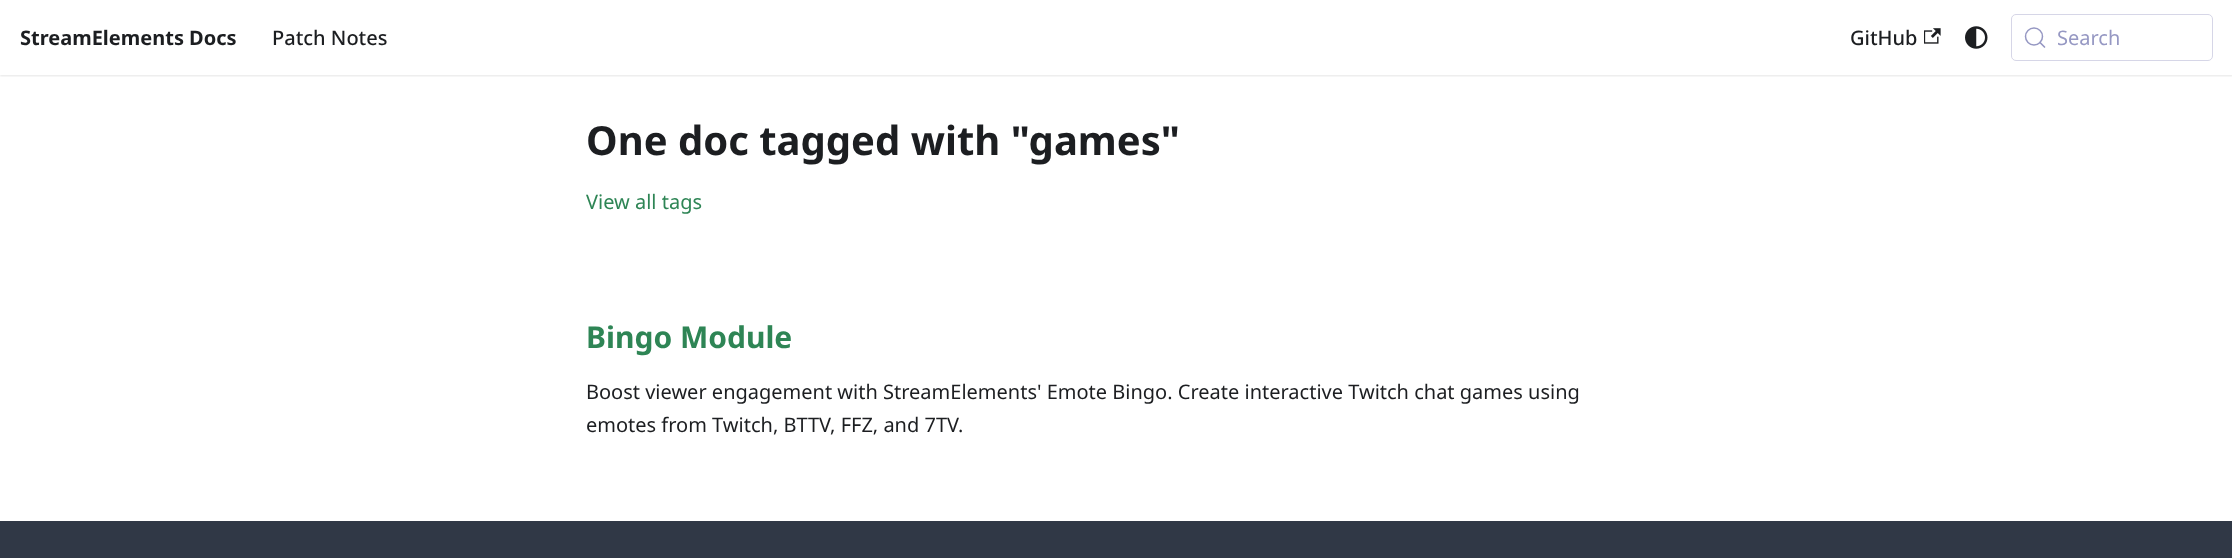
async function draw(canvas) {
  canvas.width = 2232;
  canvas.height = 558;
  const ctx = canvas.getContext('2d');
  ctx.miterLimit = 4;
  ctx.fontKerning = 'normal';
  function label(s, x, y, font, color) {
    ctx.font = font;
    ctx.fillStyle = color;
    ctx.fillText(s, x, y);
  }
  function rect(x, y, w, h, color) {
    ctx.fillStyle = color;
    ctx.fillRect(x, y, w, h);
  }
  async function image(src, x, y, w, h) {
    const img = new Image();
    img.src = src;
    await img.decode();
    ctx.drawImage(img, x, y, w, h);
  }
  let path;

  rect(0, 0, 2232, 558, '#fff');
  ctx.save();
  ctx.beginPath();
  ctx.rect(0, 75, 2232, 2);
  ctx.clip();
  ctx.fillStyle = '#0000001a';
  ctx.filter = 'blur(1px)';
  ctx.beginPath();
  ctx.rect(0, 1, 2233, 75);
  ctx.fill();
  ctx.filter = 'none';
  ctx.restore();
  label('StreamElements Docs', 20, 45, 'bold 20px Noto Sans', '#1c1e21');
  label('Patch Notes', 272, 45, '500 20px Noto Sans', '#1c1e21');
  label('GitHub', 1850, 45, '500 20px Noto Sans', '#1c1e21');
  await image('assets/img1.png', 1924, 28, 17, 16);
  await image('assets/img2.png', 1965, 26, 23, 23);
  ctx.beginPath();
  ctx.roundRect(2011.5, 14.5, 201, 46, 4.5);
  ctx.strokeStyle = '#d6d6e7';
  ctx.stroke();
  ctx.beginPath();
  ctx.arc(2034, 36.5, 8.5, 0, 2 * Math.PI);
  ctx.strokeStyle = '#9698c3';
  ctx.lineWidth = 1.5;
  ctx.stroke();
  path = new Path2D('M2044.5 47L2040 42.5');
  ctx.lineWidth = 1.7;
  ctx.lineCap = 'round';
  ctx.lineJoin = 'round';
  ctx.stroke(path);
  label('Search', 2057, 45, '20px Noto Sans', '#9698c3');
  label('One doc tagged with "games"', 586, 155, 'bold 40px Noto Sans', '#1c1e21');
  label('View all tags', 586, 209, '20px Noto Sans', '#2e8555');
  label('Bingo Module', 586, 348, 'bold 30px Noto Sans', '#2e8555');
  label('Boost viewer engagement with StreamElements\' Emote Bingo. Create interactive Twitch chat games using', 586, 399, '20px Noto Sans', '#1c1e21');
  label('emotes from Twitch, BTTV, FFZ, and 7TV.', 586, 432, '20px Noto Sans', '#1c1e21');
  rect(0, 521, 2232, 37, '#303846');
}

draw(document.querySelector('canvas'));
